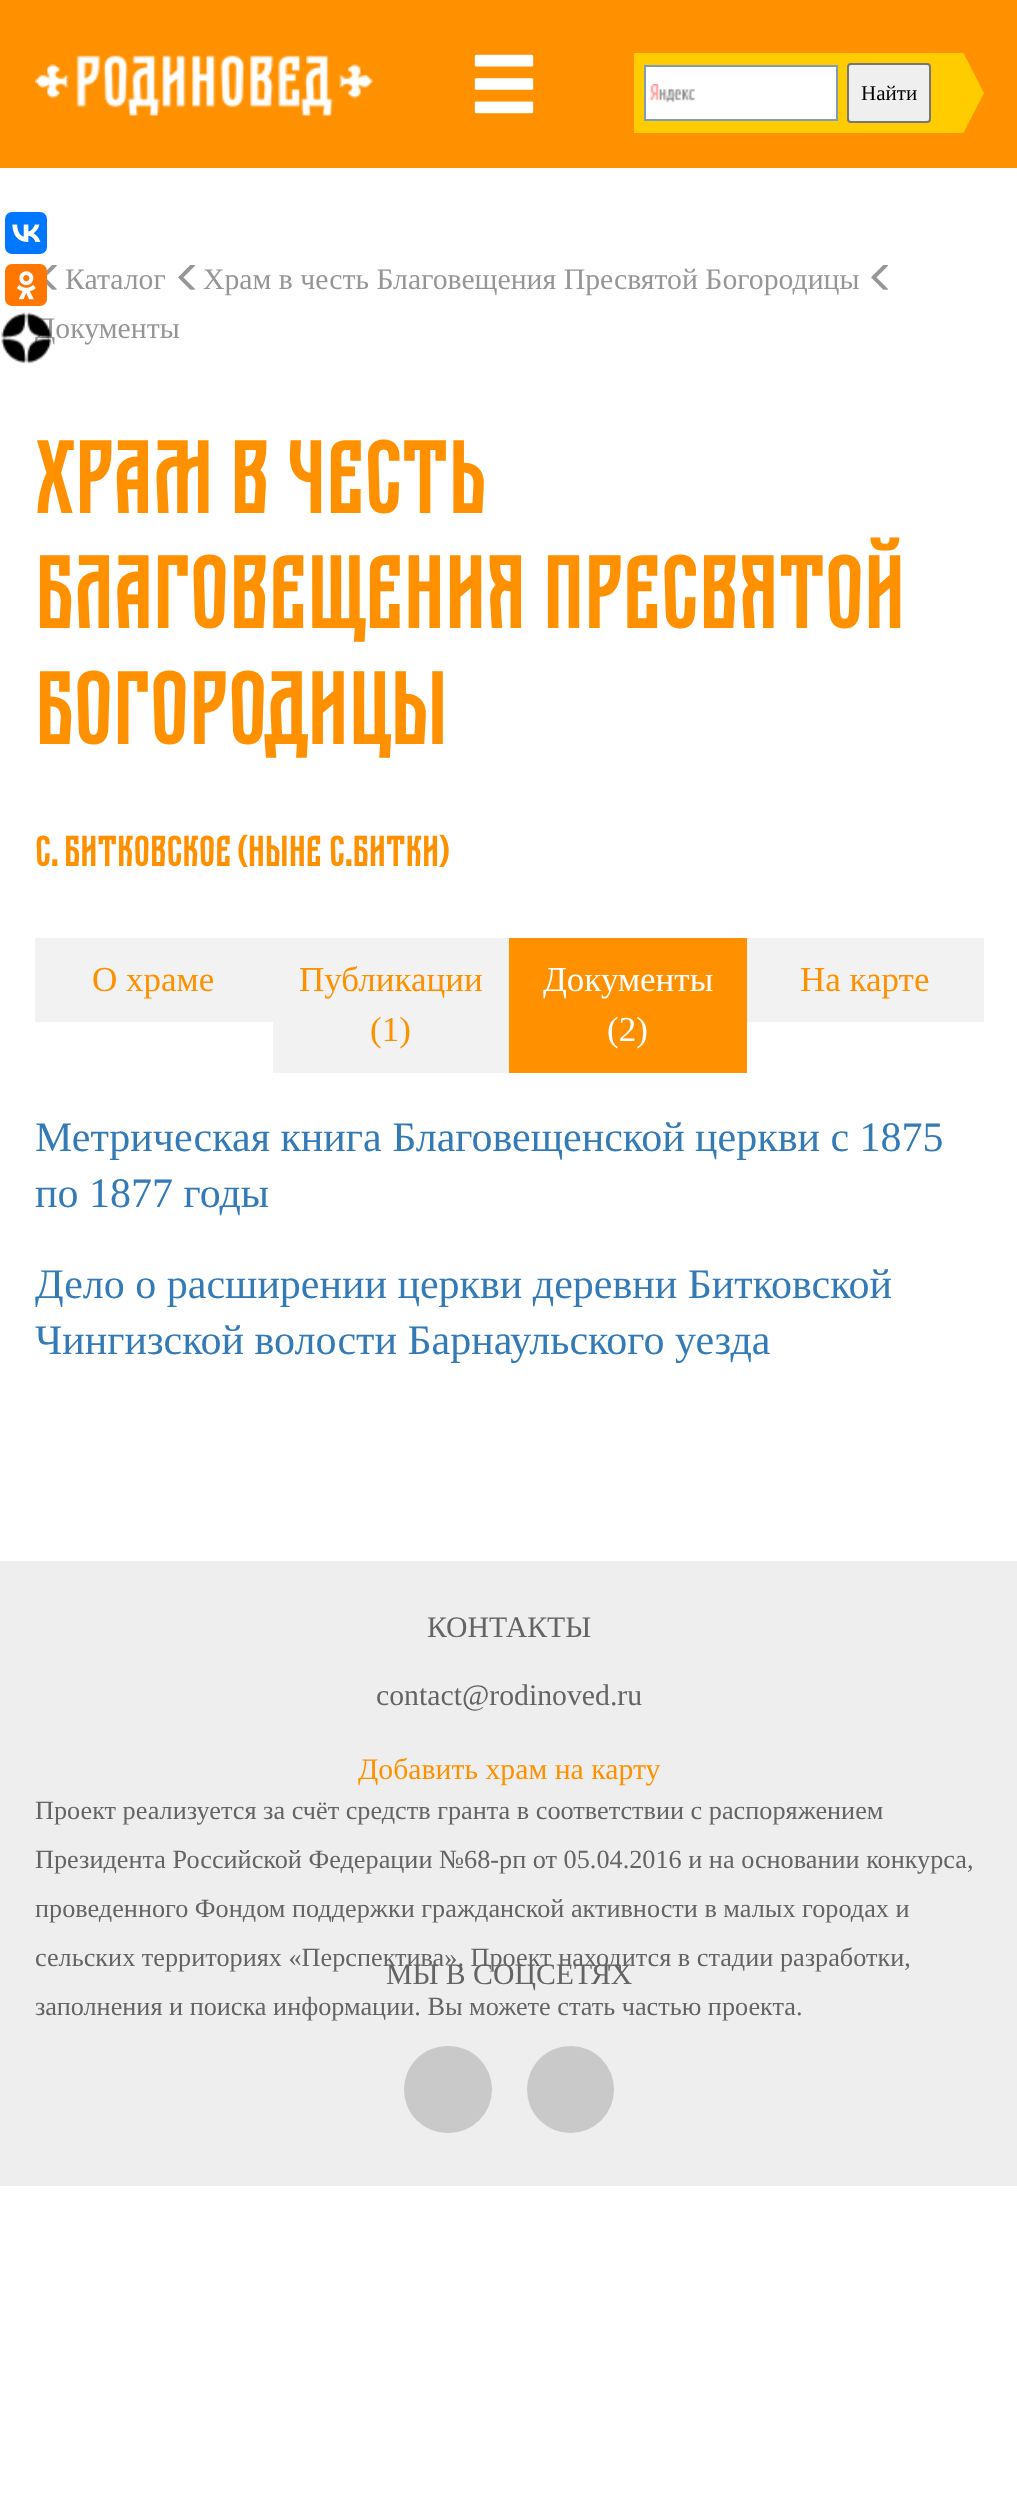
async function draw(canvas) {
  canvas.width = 1017;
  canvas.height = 2519;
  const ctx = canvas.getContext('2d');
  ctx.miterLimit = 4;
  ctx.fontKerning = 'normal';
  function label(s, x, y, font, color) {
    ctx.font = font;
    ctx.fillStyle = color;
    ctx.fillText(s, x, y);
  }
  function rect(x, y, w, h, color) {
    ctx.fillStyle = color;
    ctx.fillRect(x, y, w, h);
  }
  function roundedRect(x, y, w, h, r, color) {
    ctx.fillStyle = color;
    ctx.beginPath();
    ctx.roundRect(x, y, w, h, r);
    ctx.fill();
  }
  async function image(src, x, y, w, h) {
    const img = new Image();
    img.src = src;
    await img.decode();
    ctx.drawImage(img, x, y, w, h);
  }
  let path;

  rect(0, 0, 1017, 2519, '#fff');
  rect(0, 0, 1017, 168, '#ff9000');
  await image('assets/img1.png', 35, 55, 338, 61);
  await image('assets/img2.png', 474, 54, 60, 60);
  rect(634, 53, 297, 80, '#fc0');
  rect(646, 67, 190, 52, '#fff');
  await image('assets/img3.png', 649, 84, 46, 19);
  ctx.strokeStyle = '#7f9db9';
  ctx.lineWidth = 2;
  ctx.strokeRect(645, 66, 192, 54);
  ctx.fillStyle = '#efefef';
  ctx.beginPath();
  ctx.roundRect(848, 64, 82, 58, 3);
  ctx.fill();
  ctx.strokeStyle = '#767676';
  ctx.stroke();
  label('Найти', 861, 100, '21px Liberation Serif', '#000');
  ctx.save();
  ctx.beginPath();
  ctx.rect(931, 53, 53, 80);
  ctx.clip();
  ctx.fillStyle = '#fc0';
  path = new Path2D('M931 196V-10L984 93Z');
  ctx.fill(path);
  ctx.restore();
  await image('assets/img4.png', 46, 265, 11, 25);
  label('Каталог', 65, 289, '29.75px Liberation Serif', '#969696');
  await image('assets/img5.png', 178, 265, 18, 25);
  label('Храм в честь Благовещения Пресвятой Богородицы', 203, 289, '29.75px Liberation Serif', '#969696');
  await image('assets/img5.png', 871, 265, 18, 25);
  label('Документы', 35, 338, '29.75px Liberation Serif', '#969696');
  label('Храм в честь', 35, 513, '105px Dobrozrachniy', '#ff9000');
  label('Благовещения Пресвятой', 35, 628, '105px Dobrozrachniy', '#ff9000');
  label('Богородицы', 35, 744, '105px Dobrozrachniy', '#ff9000');
  label('с. Битковское (ныне с.Битки)', 35, 866, '43.75px Dobrozrachniy', '#ff9000');
  rect(35, 938, 238, 84, '#f2f2f2');
  label('О храме', 92, 991, '35px Liberation Serif', '#ff9000');
  rect(273, 938, 236, 135, '#f2f2f2');
  label('Публикации', 299, 991, '35px Liberation Serif', '#ff9000');
  label('(1)', 370, 1041, '35px Liberation Serif', '#ff9000');
  rect(509, 938, 238, 135, '#ff9000');
  label('Документы', 543, 991, '35px Liberation Serif', '#fff');
  label('(2)', 607, 1041, '35px Liberation Serif', '#fff');
  rect(747, 938, 237, 84, '#f2f2f2');
  label('На карте', 800, 991, '35px Liberation Serif', '#ff9000');
  label('Метрическая книга Благовещенской церкви с 1875', 35, 1151, '42px Liberation Serif', '#337ab7');
  label('по 1877 годы', 35, 1207, '42px Liberation Serif', '#337ab7');
  label('Дело о расширении церкви деревни Битковской', 35, 1298, '42px Liberation Serif', '#337ab7');
  label('Чингизской волости Барнаульского уезда', 35, 1354, '42px Liberation Serif', '#337ab7');
  rect(0, 1561, 1017, 625, '#eee');
  roundedRect(5, 212, 42, 42, 7, '#07f');
  await image('assets/img6.png', 12, 224, 29, 18);
  roundedRect(5, 264, 42, 42, 7, '#f70');
  await image('assets/img7.png', 16, 271, 20, 29);
  await image('assets/img8.png', 1, 312, 51, 52);
  label('КОНТАКТЫ', 427, 1637, '29.75px Liberation Serif', '#646464');
  label('contact@rodinoved.ru', 376, 1705, '29.75px Liberation Serif', '#646464');
  label('Добавить храм на карту', 358, 1779, '29.75px Liberation Serif', '#ff9000');
  label('Проект реализуется за счёт средств гранта в соответствии c распоряжением', 35, 1819, '26.25px Liberation Serif', '#646464');
  label('Президента Российской Федерации №68-рп от 05.04.2016 и на основании конкурса,', 35, 1868, '26.25px Liberation Serif', '#646464');
  label('проведенного Фондом поддержки гражданской активности в малых городах и', 35, 1917, '26.25px Liberation Serif', '#646464');
  label('сельских территориях «Перспектива». Проект находится в стадии разработки,', 35, 1966, '26.25px Liberation Serif', '#646464');
  label('заполнения и поиска информации. Вы можете стать частью проекта.', 35, 2015, '26.25px Liberation Serif', '#646464');
  label('МЫ В СОЦСЕТЯХ', 386, 1984, '29.75px Liberation Serif', '#646464');
  roundedRect(404, 2046, 88, 87, 43.5, '#c9c9c9');
  ctx.beginPath();
  ctx.arc(570.5, 2089.5, 43.5, 0, 2 * Math.PI);
  ctx.fill();
}

draw(document.querySelector('canvas'));
